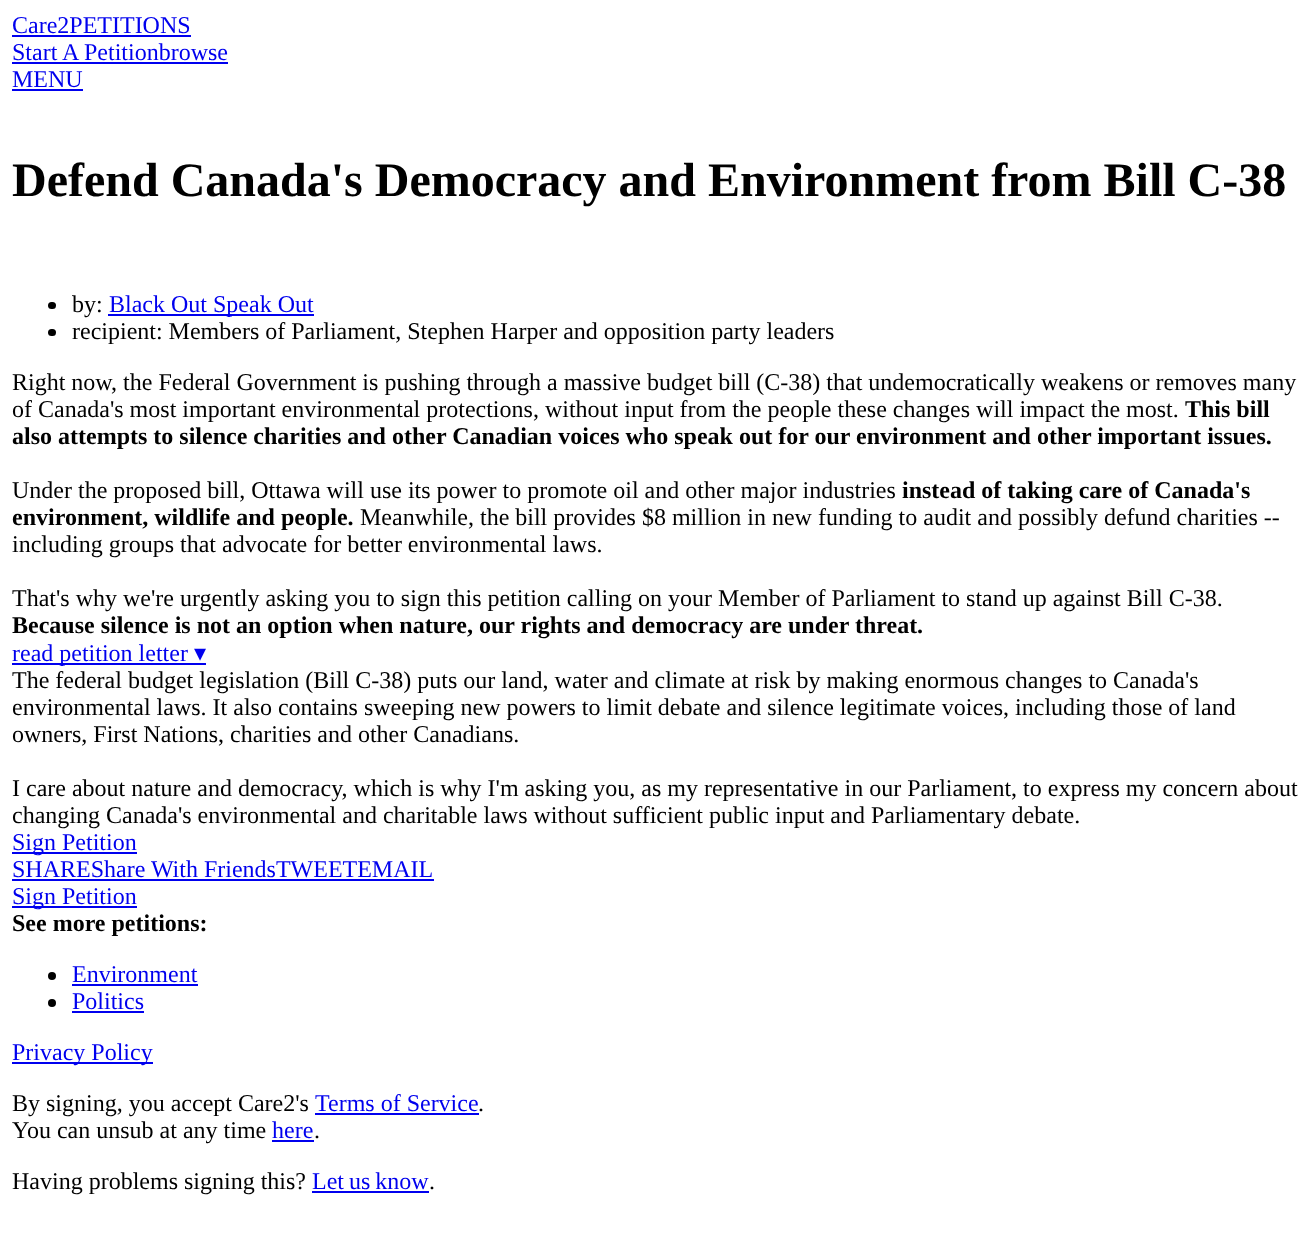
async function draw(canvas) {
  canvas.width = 1316;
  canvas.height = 1233;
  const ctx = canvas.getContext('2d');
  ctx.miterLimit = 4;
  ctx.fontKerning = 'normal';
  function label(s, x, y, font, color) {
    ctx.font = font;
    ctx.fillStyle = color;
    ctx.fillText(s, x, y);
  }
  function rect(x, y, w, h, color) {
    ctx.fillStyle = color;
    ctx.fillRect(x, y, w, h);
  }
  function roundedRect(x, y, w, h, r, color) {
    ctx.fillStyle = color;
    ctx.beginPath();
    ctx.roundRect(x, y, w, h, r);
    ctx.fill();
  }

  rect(0, 0, 1316, 1233, '#fff');
  label('Care2PETITIONS', 12, 33, '24px Liberation Serif', '#00e');
  rect(12, 35, 179, 2, '#00e');
  label('Start A Petitionbrowse', 12, 60, '24px Liberation Serif', '#00e');
  rect(12, 62, 216, 2, '#00e');
  label('MENU', 12, 87, '24px Liberation Serif', '#00e');
  rect(12, 89, 71, 2, '#00e');
  label('Defend Canada\'s Democracy and Environment from Bill C-38', 12, 196, 'bold 48px Liberation Serif', '#000');
  roundedRect(48, 302, 8, 7, 3.5, '#000');
  label('by:', 72, 312, '24px Liberation Serif', '#000');
  rect(108, 314, 206, 2, '#00e');
  label('Black Out Speak Out', 109, 312, '24px Liberation Serif', '#00e');
  roundedRect(48, 329, 8, 7, 3.5, '#000');
  label('recipient: Members of Parliament, Stephen Harper and opposition party leaders', 72, 339, '24px Liberation Serif', '#000');
  label('Right now, the Federal Government is pushing through a massive budget bill (C-38) that undemocratically weakens or removes many', 12, 390, '24px Liberation Serif', '#000');
  label('of Canada\'s most important environmental protections, without input from the people these changes will impact the most.', 12, 417, '24px Liberation Serif', '#000');
  label('This bill', 1185, 417, 'bold 24px Liberation Serif', '#000');
  label('also attempts to silence charities and other Canadian voices who speak out for our environment and other important issues.', 12, 444, 'bold 24px Liberation Serif', '#000');
  label('Under the proposed bill, Ottawa will use its power to promote oil and other major industries', 12, 498, '24px Liberation Serif', '#000');
  label('instead of taking care of Canada\'s', 902, 498, 'bold 24px Liberation Serif', '#000');
  label('environment, wildlife and people.', 12, 525, 'bold 24px Liberation Serif', '#000');
  label('Meanwhile, the bill provides $8 million in new funding to audit and possibly defund charities --', 360, 525, '24px Liberation Serif', '#000');
  label('including groups that advocate for better environmental laws.', 12, 552, '24px Liberation Serif', '#000');
  label('That\'s why we\'re urgently asking you to sign this petition calling on your Member of Parliament to stand up against Bill C-38.', 12, 606, '24px Liberation Serif', '#000');
  label('Because silence is not an option when nature, our rights and democracy are under threat.', 12, 633, 'bold 24px Liberation Serif', '#000');
  rect(12, 663, 194, 2, '#00e');
  label('read petition letter', 12, 661, '24px Liberation Serif', '#00e');
  label('▾', 194, 661, '24px DejaVu Sans', '#00e');
  label('The federal budget legislation (Bill C-38) puts our land, water and climate at risk by making enormous changes to Canada\'s', 12, 688, '24px Liberation Serif', '#000');
  label('environmental laws. It also contains sweeping new powers to limit debate and silence legitimate voices, including those of land', 12, 715, '24px Liberation Serif', '#000');
  label('owners, First Nations, charities and other Canadians.', 12, 742, '24px Liberation Serif', '#000');
  label('I care about nature and democracy, which is why I\'m asking you, as my representative in our Parliament, to express my concern about', 12, 796, '24px Liberation Serif', '#000');
  label('changing Canada\'s environmental and charitable laws without sufficient public input and Parliamentary debate.', 12, 823, '24px Liberation Serif', '#000');
  rect(12, 852, 125, 2, '#00e');
  label('Sign Petition', 12, 850, '24px Liberation Serif', '#00e');
  label('SHAREShare With FriendsTWEETEMAIL', 12, 877, '24px Liberation Serif', '#00e');
  rect(12, 879, 422, 2, '#00e');
  rect(12, 906, 125, 2, '#00e');
  label('Sign Petition', 12, 904, '24px Liberation Serif', '#00e');
  label('See more petitions:', 12, 931, 'bold 24px Liberation Serif', '#000');
  ctx.beginPath();
  ctx.arc(52, 976, 4, 0, 2 * Math.PI);
  ctx.fill();
  label('Environment', 72, 982, '24px Liberation Serif', '#00e');
  rect(72, 984, 126, 2, '#00e');
  ctx.fillStyle = '#000';
  ctx.beginPath();
  ctx.arc(52, 1003, 4, 0, 2 * Math.PI);
  ctx.fill();
  label('Politics', 72, 1009, '24px Liberation Serif', '#00e');
  rect(72, 1011, 72, 2, '#00e');
  rect(12, 1062, 141, 2, '#00e');
  label('Privacy Policy', 12, 1060, '24px Liberation Serif', '#00e');
  label('By signing, you accept Care2\'s', 12, 1111, '24px Liberation Serif', '#000');
  label('Terms of Service', 315, 1111, '24px Liberation Serif', '#00e');
  rect(315, 1113, 164, 2, '#00e');
  label('.', 478, 1111, '24px Liberation Serif', '#000');
  label('You can unsub at any time', 12, 1138, '24px Liberation Serif', '#000');
  label('here', 272, 1138, '24px Liberation Serif', '#00e');
  rect(272, 1140, 42, 2, '#00e');
  label('.', 314, 1138, '24px Liberation Serif', '#000');
  label('Having problems signing this?', 12, 1189, '24px Liberation Serif', '#000');
  ctx.wordSpacing = '-1px';
  label('Let us know', 312, 1189, '24px Liberation Serif', '#00e');
  rect(312, 1191, 117, 2, '#00e');
  ctx.wordSpacing = '0px';
  label('.', 429, 1189, '24px Liberation Serif', '#000');
}

draw(document.querySelector('canvas'));
